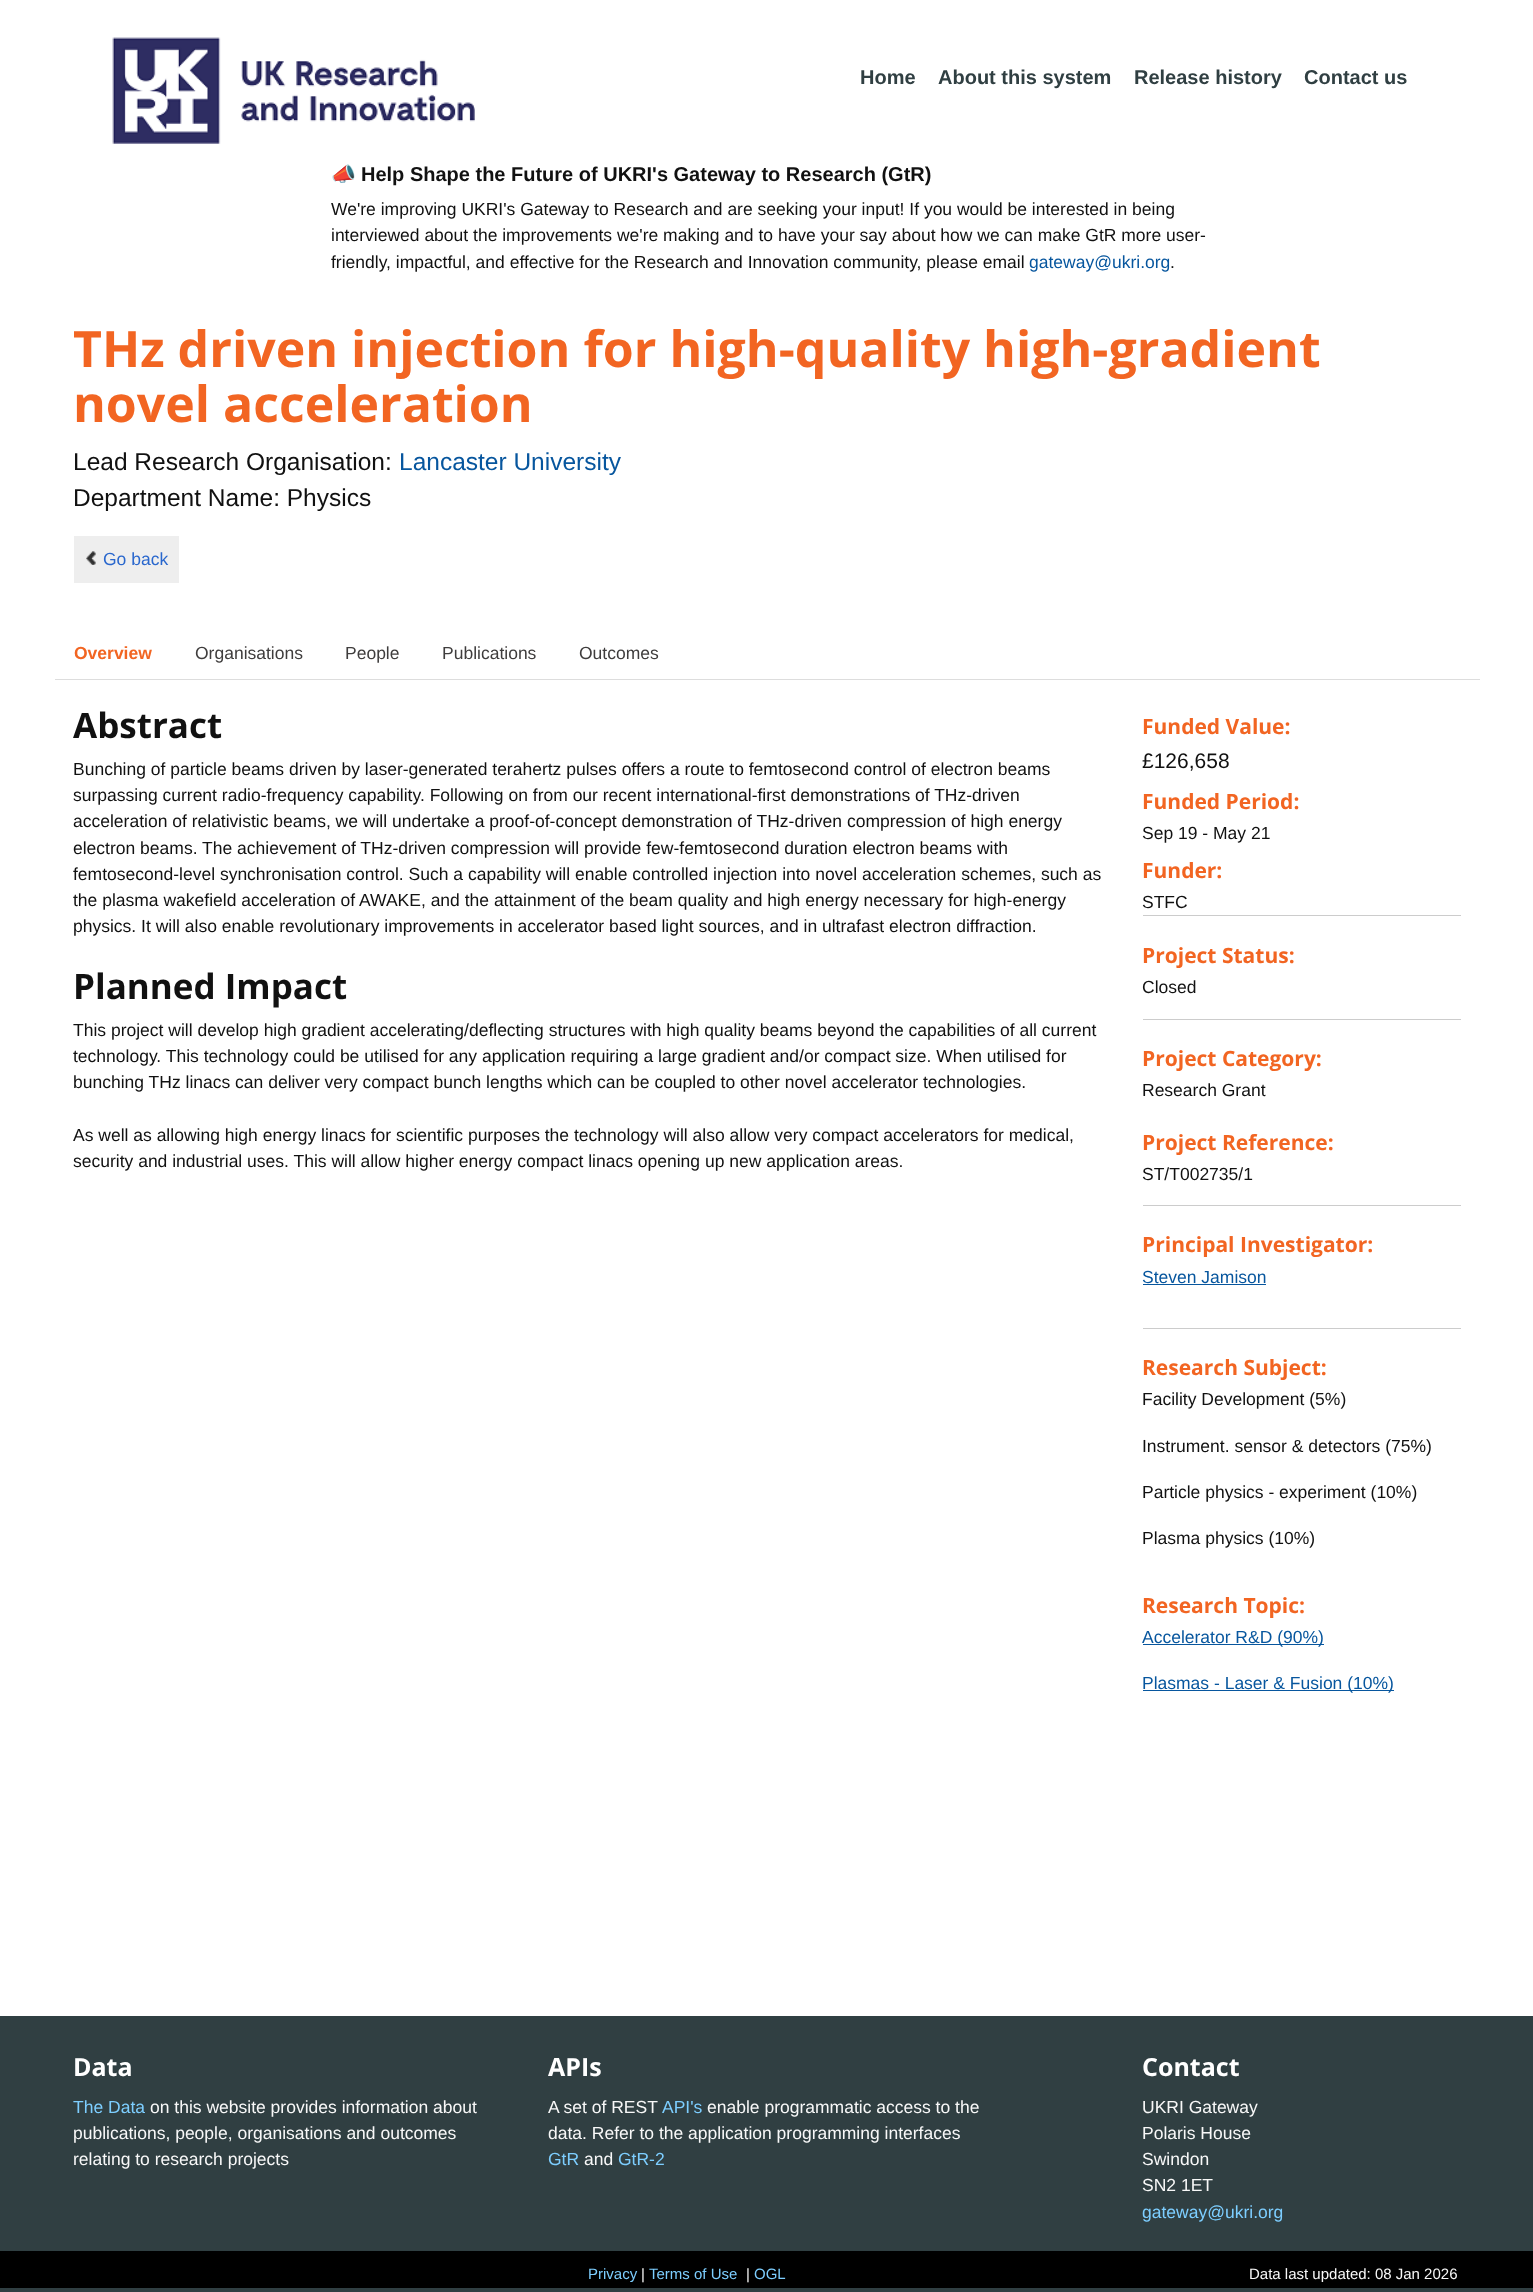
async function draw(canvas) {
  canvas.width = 1533;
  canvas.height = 2292;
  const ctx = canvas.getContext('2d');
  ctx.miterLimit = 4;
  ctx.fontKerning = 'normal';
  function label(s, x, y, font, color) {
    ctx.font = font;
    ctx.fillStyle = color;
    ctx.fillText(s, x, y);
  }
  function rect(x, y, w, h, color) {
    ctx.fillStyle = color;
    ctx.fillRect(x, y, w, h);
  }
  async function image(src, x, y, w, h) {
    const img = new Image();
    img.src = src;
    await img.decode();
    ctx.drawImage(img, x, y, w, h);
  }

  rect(0, 0, 1533, 2292, '#fff');
  await image('assets/img1.png', 112, 37, 363, 107);
  label('Home', 860, 84, 'bold 20px Liberation Sans', '#303f42');
  label('About this system', 938, 84, 'bold 20px Liberation Sans', '#303f42');
  label('Release history', 1134, 84, 'bold 20px Liberation Sans', '#303f42');
  label('Contact us', 1304, 84, 'bold 20px Liberation Sans', '#303f42');
  label('📣', 331, 181, 'bold 20px Noto Color Emoji', '#111');
  label('Help Shape the Future of UKRI\'s Gateway to Research (GtR)', 361, 181, 'bold 20px Liberation Sans', '#111');
  label('We\'re improving UKRI\'s Gateway to Research and are seeking your input! If you would be interested in being', 331, 215, '17.5px Liberation Sans', '#111');
  label('interviewed about the improvements we\'re making and to have your say about how we can make GtR more user-', 331, 241, '17.5px Liberation Sans', '#111');
  label('friendly, impactful, and effective for the Research and Innovation community, please email', 331, 268, '17.5px Liberation Sans', '#111');
  label('gateway@ukri.org', 1029, 268, '17.5px Liberation Sans', '#07569e');
  label('.', 1170, 268, '17.5px Liberation Sans', '#111');
  label('THz driven injection for high-quality high-gradient', 73, 367, 'bold 50px Open Sans', '#f26522');
  label('novel acceleration', 73, 422, 'bold 50px Open Sans', '#f26522');
  label('Lead Research Organisation:', 73, 470, '24.5px Liberation Sans', '#111');
  label('Lancaster University', 399, 470, '24.5px Liberation Sans', '#07569e');
  label('Department Name: Physics', 73, 506, '24.5px Liberation Sans', '#111');
  rect(74, 536, 105, 47, '#eee');
  await image('assets/img2.png', 86, 551, 10, 14);
  label('Go back', 103, 565, '17.5px Liberation Sans', '#2967cd');
  rect(55, 679, 1425, 1, '#ddd');
  label('Overview', 74, 659, 'bold 17.5px Liberation Sans', '#f26522');
  label('Organisations', 195, 659, '17.5px Liberation Sans', '#3f3d3d');
  label('People', 345, 659, '17.5px Liberation Sans', '#3f3d3d');
  label('Publications', 442, 659, '17.5px Liberation Sans', '#3f3d3d');
  label('Outcomes', 579, 659, '17.5px Liberation Sans', '#3f3d3d');
  label('Abstract', 73, 738, 'bold 35px Open Sans', '#111');
  label('Bunching of particle beams driven by laser-generated terahertz pulses offers a route to femtosecond control of electron beams', 73, 775, '17.5px Liberation Sans', '#111');
  label('surpassing current radio-frequency capability. Following on from our recent international-first demonstrations of THz-driven', 73, 801, '17.5px Liberation Sans', '#111');
  label('acceleration of relativistic beams, we will undertake a proof-of-concept demonstration of THz-driven compression of high energy', 73, 827, '17.5px Liberation Sans', '#111');
  label('electron beams. The achievement of THz-driven compression will provide few-femtosecond duration electron beams with', 73, 854, '17.5px Liberation Sans', '#111');
  label('femtosecond-level synchronisation control. Such a capability will enable controlled injection into novel acceleration schemes, such as', 73, 880, '17.5px Liberation Sans', '#111');
  label('the plasma wakefield acceleration of AWAKE, and the attainment of the beam quality and high energy necessary for high-energy', 73, 906, '17.5px Liberation Sans', '#111');
  label('physics. It will also enable revolutionary improvements in accelerator based light sources, and in ultrafast electron diffraction.', 73, 932, '17.5px Liberation Sans', '#111');
  label('Planned Impact', 73, 999, 'bold 35px Open Sans', '#111');
  label('This project will develop high gradient accelerating/deflecting structures with high quality beams beyond the capabilities of all current', 73, 1036, '17.5px Liberation Sans', '#111');
  label('technology. This technology could be utilised for any application requiring a large gradient and/or compact size. When utilised for', 73, 1062, '17.5px Liberation Sans', '#111');
  label('bunching THz linacs can deliver very compact bunch lengths which can be coupled to other novel accelerator technologies.', 73, 1088, '17.5px Liberation Sans', '#111');
  label('As well as allowing high energy linacs for scientific purposes the technology will also allow very compact accelerators for medical,', 73, 1141, '17.5px Liberation Sans', '#111');
  label('security and industrial uses. This will allow higher energy compact linacs opening up new application areas.', 73, 1167, '17.5px Liberation Sans', '#111');
  label('Funded Value:', 1142, 734, 'bold 21px Open Sans', '#f26522');
  label('£126,658', 1142, 768, '21px Liberation Sans', '#111');
  label('Funded Period:', 1142, 809, 'bold 21px Open Sans', '#f26522');
  label('Sep 19 - May 21', 1142, 839, '17.5px Liberation Sans', '#111');
  label('Funder:', 1142, 878, 'bold 21px Open Sans', '#f26522');
  label('STFC', 1142, 908, '17.5px Liberation Sans', '#111');
  rect(1143, 915, 318, 1, '#ccc');
  label('Project Status:', 1142, 963, 'bold 21px Open Sans', '#f26522');
  label('Closed', 1142, 993, '17.5px Liberation Sans', '#111');
  rect(1143, 1019, 318, 1, '#ccc');
  label('Project Category:', 1142, 1066, 'bold 21px Open Sans', '#f26522');
  label('Research Grant', 1142, 1096, '17.5px Liberation Sans', '#111');
  label('Project Reference:', 1142, 1150, 'bold 21px Open Sans', '#f26522');
  label('ST/T002735/1', 1142, 1180, '17.5px Liberation Sans', '#111');
  rect(1143, 1205, 318, 1, '#ccc');
  label('Principal Investigator:', 1142, 1252, 'bold 21px Open Sans', '#f26522');
  label('Steven Jamison', 1142, 1283, '17.5px Liberation Sans', '#07569e');
  rect(1143, 1284, 123, 1, '#07569e');
  rect(1143, 1328, 318, 1, '#ccc');
  label('Research Subject:', 1142, 1375, 'bold 21px Open Sans', '#f26522');
  label('Facility Development (5%)', 1142, 1405, '17.5px Liberation Sans', '#111');
  label('Instrument. sensor & detectors (75%)', 1142, 1452, '17.5px Liberation Sans', '#111');
  label('Particle physics - experiment (10%)', 1142, 1498, '17.5px Liberation Sans', '#111');
  label('Plasma physics (10%)', 1142, 1544, '17.5px Liberation Sans', '#111');
  label('Research Topic:', 1142, 1613, 'bold 21px Open Sans', '#f26522');
  rect(1143, 1644, 181, 1, '#07569e');
  label('Accelerator R&D (90%)', 1142, 1643, '17.5px Liberation Sans', '#07569e');
  rect(1143, 1690, 251, 1, '#07569e');
  label('Plasmas - Laser & Fusion (10%)', 1142, 1689, '17.5px Liberation Sans', '#07569e');
  rect(0, 2016, 1533, 276, '#303f42');
  label('Data', 73, 2076, 'bold 25px Open Sans', '#fff');
  label('The Data', 73, 2113, '17.5px Liberation Sans', '#7dceff');
  label('on this website provides information about', 150, 2113, '17.5px Liberation Sans', '#f8f8f8');
  label('publications, people, organisations and outcomes', 73, 2139, '17.5px Liberation Sans', '#f8f8f8');
  label('relating to research projects', 73, 2165, '17.5px Liberation Sans', '#f8f8f8');
  label('APIs', 548, 2076, 'bold 25px Open Sans', '#fff');
  label('A set of REST', 548, 2113, '17.5px Liberation Sans', '#f8f8f8');
  label('API\'s', 662, 2113, '17.5px Liberation Sans', '#7dceff');
  label('enable programmatic access to the', 707, 2113, '17.5px Liberation Sans', '#f8f8f8');
  label('data. Refer to the application programming interfaces', 548, 2139, '17.5px Liberation Sans', '#f8f8f8');
  label('GtR', 548, 2165, '17.5px Liberation Sans', '#7dceff');
  label('and', 584, 2165, '17.5px Liberation Sans', '#f8f8f8');
  label('GtR-2', 618, 2165, '17.5px Liberation Sans', '#7dceff');
  label('Contact', 1142, 2076, 'bold 25px Open Sans', '#fff');
  label('UKRI Gateway', 1142, 2113, '17.5px Liberation Sans', '#f8f8f8');
  label('Polaris House', 1142, 2139, '17.5px Liberation Sans', '#f8f8f8');
  label('Swindon', 1142, 2165, '17.5px Liberation Sans', '#f8f8f8');
  label('SN2 1ET', 1142, 2191, '17.5px Liberation Sans', '#f8f8f8');
  label('gateway@ukri.org', 1142, 2218, '17.5px Liberation Sans', '#7dceff');
  rect(0, 2251, 1533, 37, '#000');
  label('Privacy', 588, 2279, '15px Liberation Sans', '#7dceff');
  label('|', 641, 2279, '15px Liberation Sans', '#f8f8f8');
  label('Terms of Use', 649, 2279, '15px Liberation Sans', '#7dceff');
  label('|', 746, 2279, '15px Liberation Sans', '#f8f8f8');
  label('OGL', 754, 2279, '15px Liberation Sans', '#7dceff');
  label('Data last updated: 08 Jan 2026', 1249, 2279, '15px Liberation Sans', '#f8f8f8');
}

draw(document.querySelector('canvas'));
